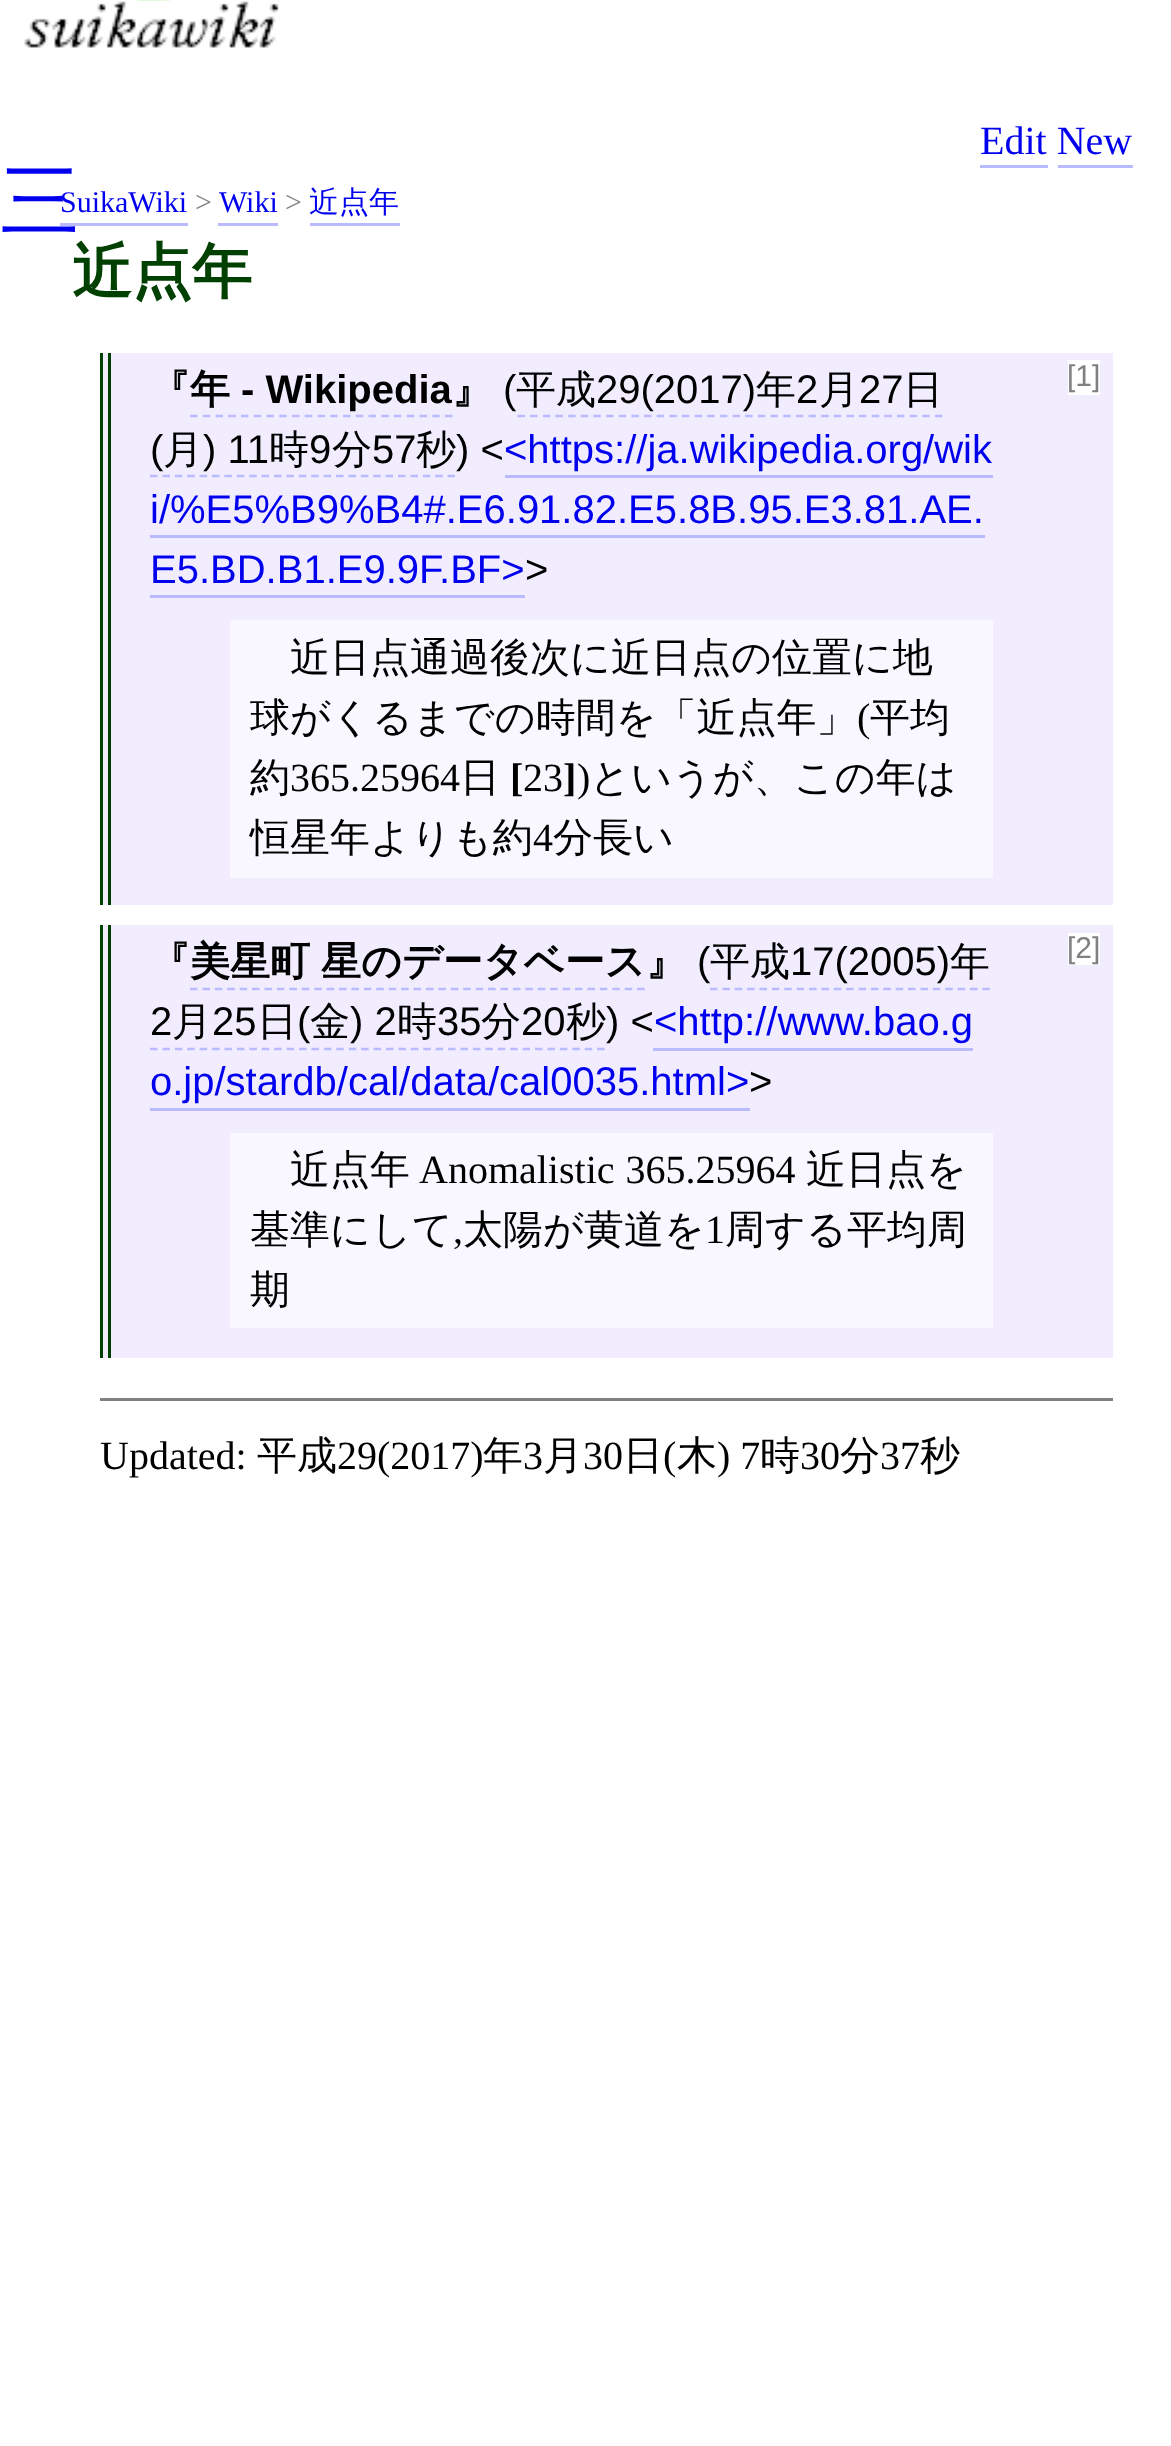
async function draw(canvas) {
  canvas.width = 1171;
  canvas.height = 2446;
  const ctx = canvas.getContext('2d');
  ctx.miterLimit = 4;
  ctx.fontKerning = 'normal';
  function label(s, x, y, font, color) {
    ctx.font = font;
    ctx.fillStyle = color;
    ctx.fillText(s, x, y);
  }
  function rect(x, y, w, h, color) {
    ctx.fillStyle = color;
    ctx.fillRect(x, y, w, h);
  }
  async function image(src, x, y, w, h) {
    const img = new Image();
    img.src = src;
    await img.decode();
    ctx.drawImage(img, x, y, w, h);
  }
  let path;

  rect(0, 0, 1171, 2446, '#fff');
  await image('assets/img1.png', 24, 0, 255, 48);
  label('Edit New', 980, 154, '40px Liberation Serif', '#00e');
  rect(980, 165, 68, 3, '#babaff');
  rect(1058, 165, 75, 3, '#babaff');
  label('SuikaWiki', 60, 212, '30px Liberation Serif', '#00e');
  rect(60, 223, 128, 3, '#babaff');
  label('三', 0, 228, '500 80px WenQuanYi Zen Hei', '#00e');
  label('>', 195, 212, '30px Liberation Serif', '#808080');
  label('Wiki', 219, 212, '30px Liberation Serif', '#00e');
  rect(218, 223, 60, 3, '#babaff');
  label('>', 285, 212, '30px Liberation Serif', '#808080');
  label('近点年', 309, 212, '500 30px WenQuanYi Zen Hei', '#00e');
  rect(310, 223, 90, 3, '#babaff');
  label('近点年', 72, 292, 'bold 60px WenQuanYi Zen Hei', '#004000');
  rect(103, 353, 1010, 552, '#f1edff');
  rect(100, 353, 3, 552, '#004000');
  rect(108, 353, 3, 552, '#004000');
  label('『年', 150, 403, 'bold 40px WenQuanYi Zen Hei', '#000');
  label('- Wikipedia', 241, 403, 'bold 40px Liberation Sans', '#000');
  label('』', 452, 403, 'bold 40px WenQuanYi Zen Hei', '#000');
  path = new Path2D('M190 416H452.5');
  ctx.strokeStyle = '#babaff';
  ctx.lineWidth = 2.5;
  ctx.setLineDash([7.5, 5.25]);
  ctx.stroke(path);
  label('(', 503, 403, '40px Liberation Sans', '#000');
  label('平成', 516, 403, '500 40px WenQuanYi Zen Hei', '#000');
  label('29(2017)', 596, 403, '40px Liberation Sans', '#000');
  path = new Path2D('M517.5 416H942.5');
  ctx.setLineDash([7.5, 5.15]);
  ctx.stroke(path);
  label('年', 756, 403, '500 40px WenQuanYi Zen Hei', '#000');
  label('2', 796, 403, '40px Liberation Sans', '#000');
  label('月', 819, 403, '500 40px WenQuanYi Zen Hei', '#000');
  label('27', 859, 403, '40px Liberation Sans', '#000');
  label('日', 903, 403, '500 40px WenQuanYi Zen Hei', '#000');
  rect(1068, 360, 32, 35, '#fff');
  label('[1]', 1067, 386, '30px Liberation Sans', '#808080');
  label('(', 150, 463, '40px Liberation Sans', '#000');
  path = new Path2D('M150 476H455');
  ctx.setLineDash([7.5, 4.9]);
  ctx.stroke(path);
  label('月', 163, 463, '500 40px WenQuanYi Zen Hei', '#000');
  label(') 11', 203, 463, '40px Liberation Sans', '#000');
  label('時', 269, 463, '500 40px WenQuanYi Zen Hei', '#000');
  label('9', 309, 463, '40px Liberation Sans', '#000');
  label('分', 332, 463, '500 40px WenQuanYi Zen Hei', '#000');
  label('57', 372, 463, '40px Liberation Sans', '#000');
  label('秒', 416, 463, '500 40px WenQuanYi Zen Hei', '#000');
  label(') <', 456, 463, '40px Liberation Sans', '#000');
  label('<https://ja.wikipedia.org/wik', 504, 463, '40px Liberation Sans', '#00e');
  rect(505, 475, 488, 3, '#babaff');
  label('i/%E5%B9%B4#.E6.91.82.E5.8B.95.E3.81.AE.', 150, 523, '40px Liberation Sans', '#00e');
  rect(150, 535, 835, 3, '#babaff');
  label('E5.BD.B1.E9.9F.BF>', 150, 583, '40px Liberation Sans', '#00e');
  rect(150, 595, 375, 3, '#babaff');
  label('>', 525, 583, '40px Liberation Sans', '#000');
  rect(230, 620, 763, 258, '#f9f7ff');
  label('近日点通過後次に近日点の位置に地', 290, 671, '500 40px WenQuanYi Zen Hei', '#000');
  label('球がくるまでの時間を「近点年」', 250, 731, '500 40px WenQuanYi Zen Hei', '#000');
  label('(', 857, 731, '40px Liberation Serif', '#000');
  label('平均', 870, 731, '500 40px WenQuanYi Zen Hei', '#000');
  label('約', 250, 791, '500 40px WenQuanYi Zen Hei', '#000');
  label('365.25964', 290, 791, '40px Liberation Serif', '#000');
  label('日', 460, 791, '500 40px WenQuanYi Zen Hei', '#000');
  label('[', 510, 791, 'bold 40px Liberation Serif', '#000');
  label('23', 523, 791, '40px Liberation Serif', '#000');
  label(']', 563, 791, 'bold 40px Liberation Serif', '#000');
  label(')', 577, 791, '40px Liberation Serif', '#000');
  label('というが、この年は', 590, 791, '500 40px WenQuanYi Zen Hei', '#000');
  label('恒星年よりも約', 250, 851, '500 40px WenQuanYi Zen Hei', '#000');
  label('4', 533, 851, '40px Liberation Serif', '#000');
  label('分長い', 553, 851, '500 40px WenQuanYi Zen Hei', '#000');
  rect(103, 925, 1010, 433, '#f1edff');
  rect(100, 925, 3, 433, '#004000');
  rect(108, 925, 3, 433, '#004000');
  label('『', 150, 975, 'bold 40px WenQuanYi Zen Hei', '#000');
  ctx.wordSpacing = '-1px';
  label('美星町 星のデータベース', 190, 975, 'bold 40px WenQuanYi Zen Hei', '#000');
  ctx.wordSpacing = '0px';
  label('』', 646, 975, 'bold 40px WenQuanYi Zen Hei', '#000');
  path = new Path2D('M190 989H645');
  ctx.setLineDash([7.5, 4.92]);
  ctx.stroke(path);
  label('(', 697, 975, '40px Liberation Sans', '#000');
  label('平成', 710, 975, '500 40px WenQuanYi Zen Hei', '#000');
  label('17(2005)', 790, 975, '40px Liberation Sans', '#000');
  path = new Path2D('M710 989H990');
  ctx.setLineDash([7.5, 4.88]);
  ctx.stroke(path);
  label('年', 950, 975, '500 40px WenQuanYi Zen Hei', '#000');
  rect(1068, 933, 32, 32, '#fff');
  label('[2]', 1067, 958, '30px Liberation Sans', '#808080');
  label('2', 150, 1035, '40px Liberation Sans', '#000');
  label('月', 172, 1035, '500 40px WenQuanYi Zen Hei', '#000');
  label('25', 212, 1035, '40px Liberation Sans', '#000');
  label('日', 257, 1035, '500 40px WenQuanYi Zen Hei', '#000');
  label('(', 297, 1035, '40px Liberation Sans', '#000');
  path = new Path2D('M150 1049H605');
  ctx.setLineDash([7.5, 4.92]);
  ctx.stroke(path);
  label('金', 310, 1035, '500 40px WenQuanYi Zen Hei', '#000');
  label(') 2', 350, 1035, '40px Liberation Sans', '#000');
  label('時', 397, 1035, '500 40px WenQuanYi Zen Hei', '#000');
  label('35', 437, 1035, '40px Liberation Sans', '#000');
  label('分', 481, 1035, '500 40px WenQuanYi Zen Hei', '#000');
  label('20', 521, 1035, '40px Liberation Sans', '#000');
  label('秒', 566, 1035, '500 40px WenQuanYi Zen Hei', '#000');
  label(') <', 606, 1035, '40px Liberation Sans', '#000');
  label('<http://www.bao.g', 654, 1035, '40px Liberation Sans', '#00e');
  rect(653, 1048, 320, 3, '#babaff');
  label('o.jp/stardb/cal/data/cal0035.html>', 150, 1095, '40px Liberation Sans', '#00e');
  rect(150, 1108, 600, 3, '#babaff');
  label('>', 749, 1095, '40px Liberation Sans', '#000');
  rect(230, 1133, 763, 195, '#f9f7ff');
  label('近点年', 290, 1183, '500 40px WenQuanYi Zen Hei', '#000');
  ctx.wordSpacing = '1px';
  label('Anomalistic 365.25964', 419, 1183, '40px Liberation Serif', '#000');
  ctx.wordSpacing = '0px';
  label('近日点を', 806, 1183, '500 40px WenQuanYi Zen Hei', '#000');
  label('基準にして', 250, 1243, '500 40px WenQuanYi Zen Hei', '#000');
  label(',', 453, 1243, '40px Liberation Serif', '#000');
  label('太陽が黄道を', 463, 1243, '500 40px WenQuanYi Zen Hei', '#000');
  label('1', 705, 1243, '40px Liberation Serif', '#000');
  label('周する平均周', 725, 1243, '500 40px WenQuanYi Zen Hei', '#000');
  label('期', 250, 1303, '500 40px WenQuanYi Zen Hei', '#000');
  rect(100, 1398, 1013, 3, '#808080');
  label('Updated:', 100, 1469, '40px Liberation Serif', '#000');
  label('平成', 257, 1469, '500 40px WenQuanYi Zen Hei', '#000');
  label('29(2017)', 337, 1469, '40px Liberation Serif', '#000');
  label('年', 483, 1469, '500 40px WenQuanYi Zen Hei', '#000');
  label('3', 523, 1469, '40px Liberation Serif', '#000');
  label('月', 543, 1469, '500 40px WenQuanYi Zen Hei', '#000');
  label('30', 583, 1469, '40px Liberation Serif', '#000');
  label('日', 623, 1469, '500 40px WenQuanYi Zen Hei', '#000');
  label('(', 663, 1469, '40px Liberation Serif', '#000');
  label('木', 677, 1469, '500 40px WenQuanYi Zen Hei', '#000');
  label(') 7', 717, 1469, '40px Liberation Serif', '#000');
  label('時', 760, 1469, '500 40px WenQuanYi Zen Hei', '#000');
  label('30', 800, 1469, '40px Liberation Serif', '#000');
  label('分', 840, 1469, '500 40px WenQuanYi Zen Hei', '#000');
  label('37', 880, 1469, '40px Liberation Serif', '#000');
  label('秒', 920, 1469, '500 40px WenQuanYi Zen Hei', '#000');
}

draw(document.querySelector('canvas'));
